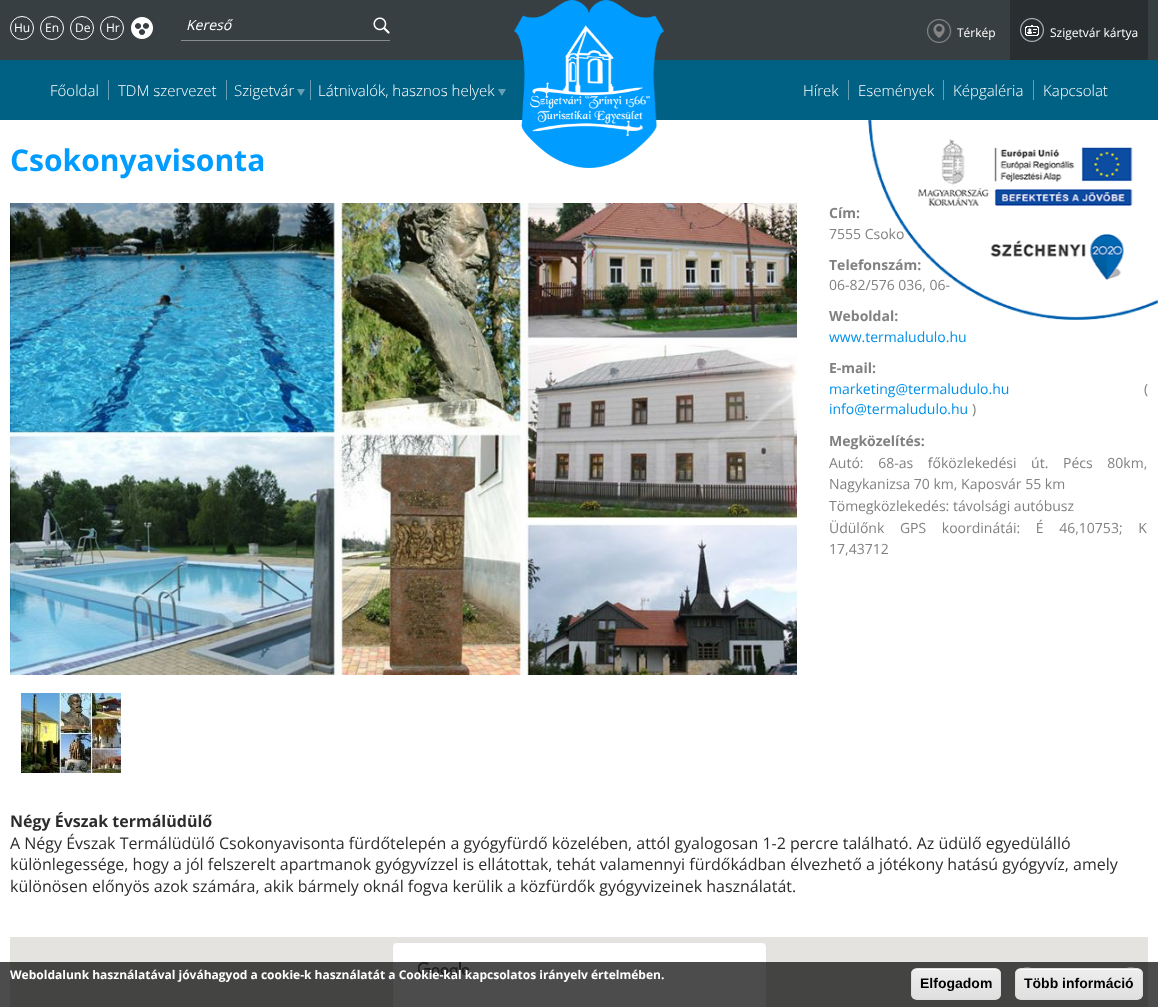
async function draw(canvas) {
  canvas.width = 1158;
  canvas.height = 1007;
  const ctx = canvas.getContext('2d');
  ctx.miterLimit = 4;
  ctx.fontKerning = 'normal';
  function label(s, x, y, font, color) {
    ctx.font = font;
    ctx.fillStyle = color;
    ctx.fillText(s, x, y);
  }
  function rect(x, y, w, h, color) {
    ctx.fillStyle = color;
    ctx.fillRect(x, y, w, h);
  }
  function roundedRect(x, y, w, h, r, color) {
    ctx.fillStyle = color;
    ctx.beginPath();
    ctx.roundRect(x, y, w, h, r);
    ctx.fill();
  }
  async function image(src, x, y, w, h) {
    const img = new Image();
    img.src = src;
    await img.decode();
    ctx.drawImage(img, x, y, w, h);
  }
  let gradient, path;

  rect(0, 0, 1158, 1007, '#fff');
  await image('assets/img1.png', 0, 0, 1158, 120);
  await image('assets/img2.png', 514, 0, 150, 168);
  ctx.beginPath();
  ctx.arc(22, 28, 11.5, 0, 2 * Math.PI);
  ctx.strokeStyle = '#fff';
  ctx.stroke();
  label('Hu', 14, 32, '12px Open Sans', '#fff');
  ctx.beginPath();
  ctx.arc(52, 28, 11.5, 0, 2 * Math.PI);
  ctx.stroke();
  label('En', 45, 32, '12px Open Sans', '#fff');
  ctx.beginPath();
  ctx.arc(82, 28, 11.5, 0, 2 * Math.PI);
  ctx.stroke();
  label('De', 75, 32, '12px Open Sans', '#fff');
  ctx.beginPath();
  ctx.arc(112, 28, 11.5, 0, 2 * Math.PI);
  ctx.stroke();
  label('Hr', 106, 32, '12px Open Sans', '#fff');
  await image('assets/img3.png', 131, 17, 22, 22);
  rect(181, 40, 209, 1, '#878c8e');
  label('Kereső', 186, 30, 'italic 14px Open Sans', '#fff');
  await image('assets/img4.png', 373, 17, 17, 17);
  await image('assets/img5.png', 927, 19, 25, 24);
  label('Térkép', 957, 37, '12px Open Sans', '#fff');
  rect(1010, 0, 138, 60, '#292f31');
  await image('assets/img6.png', 1020, 18, 24, 24);
  label('Szigetvár kártya', 1050, 37, '12px Open Sans', '#fff');
  rect(108, 80, 1, 20, '#679fb6');
  label('Főoldal', 50, 96, '300 15px Open Sans', '#fff');
  rect(226, 80, 1, 20, '#679fb6');
  label('TDM szervezet', 118, 96, '300 15px Open Sans', '#fff');
  rect(310, 80, 1, 20, '#679fb6');
  label('Szigetvár', 234, 96, '300 15px Open Sans', '#fff');
  ctx.fillStyle = '#66a0b5';
  path = new Path2D('M297 89H305L301 96Z');
  ctx.fill(path);
  label('Látnivalók, hasznos helyek', 318, 96, '300 15px Open Sans', '#fff');
  ctx.fillStyle = '#66a0b5';
  path = new Path2D('M498 89H506L502 96Z');
  ctx.fill(path);
  rect(848, 80, 1, 20, '#679fb6');
  label('Hírek', 803, 96, '300 15px Open Sans', '#fff');
  rect(943, 80, 1, 20, '#679fb6');
  label('Események', 858, 96, '300 15px Open Sans', '#fff');
  rect(1033, 80, 1, 20, '#679fb6');
  label('Képgaléria', 953, 96, '300 15px Open Sans', '#fff');
  label('Kapcsolat', 1043, 96, '300 15px Open Sans', '#fff');
  label('7555 Csoko', 829, 239, '14px Open Sans', '#818181');
  label('Telefonszám:', 829, 270, 'bold 14px Open Sans', '#818181');
  label('06-82/576 036, 06-', 829, 290, '14px Open Sans', '#818181');
  label('Weboldal:', 829, 321, 'bold 14px Open Sans', '#818181');
  await image('assets/img7.png', 868, 120, 290, 200);
  label('Csokonyavisonta', 10, 171, 'bold 30px Open Sans', '#009cff');
  await image('assets/img8.png', 10, 203, 787, 472);
  await image('assets/img9.png', 21, 693, 100, 80);
  label('Cím:', 829, 218, 'bold 14px Open Sans', '#818181');
  label('www.termaludulo.hu', 829, 342, '14px Open Sans', '#008fe9');
  label('E-mail:', 829, 373, 'bold 14px Open Sans', '#818181');
  label('marketing@termaludulo.hu', 829, 394, '14px Open Sans', '#008fe9');
  label('(', 1144, 394, '14px Open Sans', '#818181');
  label('info@termaludulo.hu', 829, 414, '14px Open Sans', '#008fe9');
  label(')', 972, 414, '14px Open Sans', '#818181');
  label('Megközelítés:', 829, 446, 'bold 14px Open Sans', '#818181');
  ctx.wordSpacing = '11px';
  label('Autó: 68-as főközlekedési út. Pécs 80km,', 829, 468, '14px Open Sans', '#818181');
  ctx.wordSpacing = '0px';
  label('Nagykanizsa 70 km, Kaposvár 55 km', 829, 489, '14px Open Sans', '#818181');
  label('Tömegközlekedés: távolsági autóbusz', 829, 511, '14px Open Sans', '#818181');
  ctx.wordSpacing = '12px';
  label('Üdülőnk GPS koordinátái: É 46,10753; K', 829, 533, '14px Open Sans', '#818181');
  ctx.wordSpacing = '0px';
  label('17,43712', 829, 554, '14px Open Sans', '#818181');
  label('Négy Évszak termálüdülő', 10, 827, 'bold 16px Open Sans', '#2c2c2c');
  label('A Négy Évszak Termálüdülő Csokonyavisonta fürdőtelepén a gyógyfürdő közelében, attól gyalogosan 1-2 percre található. Az üdülő egyedülálló', 10, 849, '16px Open Sans', '#2c2c2c');
  label('különlegessége, hogy a jól felszerelt apartmanok gyógyvízzel is ellátottak, tehát valamennyi fürdőkádban élvezhető a jótékony hatású gyógyvíz, amely', 10, 870, '16px Open Sans', '#2c2c2c');
  label('különösen előnyös azok számára, akik bármely oknál fogva kerülik a közfürdők gyógyvizeinek használatát.', 10, 892, '16px Open Sans', '#2c2c2c');
  rect(10, 937, 1138, 70, '#e5e3df');
  roundedRect(392, 942, 375, 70, 5, '#fff');
  ctx.beginPath();
  ctx.roundRect(392.5, 942.5, 374, 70, 4.5);
  ctx.strokeStyle = '#0000001f';
  ctx.stroke();
  await image('assets/img10.png', 418, 962, 52, 17);
  rect(0, 962, 1158, 45, '#000000b3');
  label('Weboldalunk használatával jóváhagyod a cookie-k használatát a Cookie-kal kapcsolatos irányelv értelmében.', 10, 979, 'bold 12px Open Sans', '#fff');
  ctx.save();
  ctx.beginPath();
  ctx.roundRect(911, 968, 90, 32, 6);
  ctx.clip();
  gradient = ctx.createLinearGradient(912, 969, 912, 999);
  gradient.addColorStop(0.05, '#ededed');
  gradient.addColorStop(1, '#dfdfdf');
  ctx.fillStyle = gradient;
  ctx.fillRect(911, 969, 90, 30);
  ctx.restore();
  path = new Path2D('M917 970H995C998 970 1000 972 1000 975C1000 966 988 969 982 969H930C924 969 912 966 912 975C912 972 914 970 917 970Z');
  ctx.fill(path);
  ctx.beginPath();
  ctx.roundRect(911.5, 968.5, 89, 31, 5.5);
  ctx.strokeStyle = '#dcdcdc';
  ctx.stroke();
  label('Elfogadom', 920, 988, 'bold 14px Liberation Sans', '#000');
  ctx.save();
  ctx.beginPath();
  ctx.roundRect(1015, 968, 128, 32, 6);
  ctx.clip();
  gradient = ctx.createLinearGradient(1016, 969, 1016, 999);
  gradient.addColorStop(0.05, '#ededed');
  gradient.addColorStop(1, '#dfdfdf');
  ctx.fillStyle = gradient;
  ctx.fillRect(1015, 969, 128, 30);
  ctx.restore();
  ctx.fillStyle = '#fff';
  path = new Path2D('M1021 970H1137C1140 970 1142 972 1142 975C1142 964 1122 969 1118 969H1040C1036 969 1016 964 1016 975C1016 972 1018 970 1021 970Z');
  ctx.fill(path);
  ctx.beginPath();
  ctx.roundRect(1015.5, 968.5, 127, 31, 5.5);
  ctx.stroke();
  label('Több információ', 1024, 988, 'bold 14px Liberation Sans', '#000');
}

draw(document.querySelector('canvas'));
